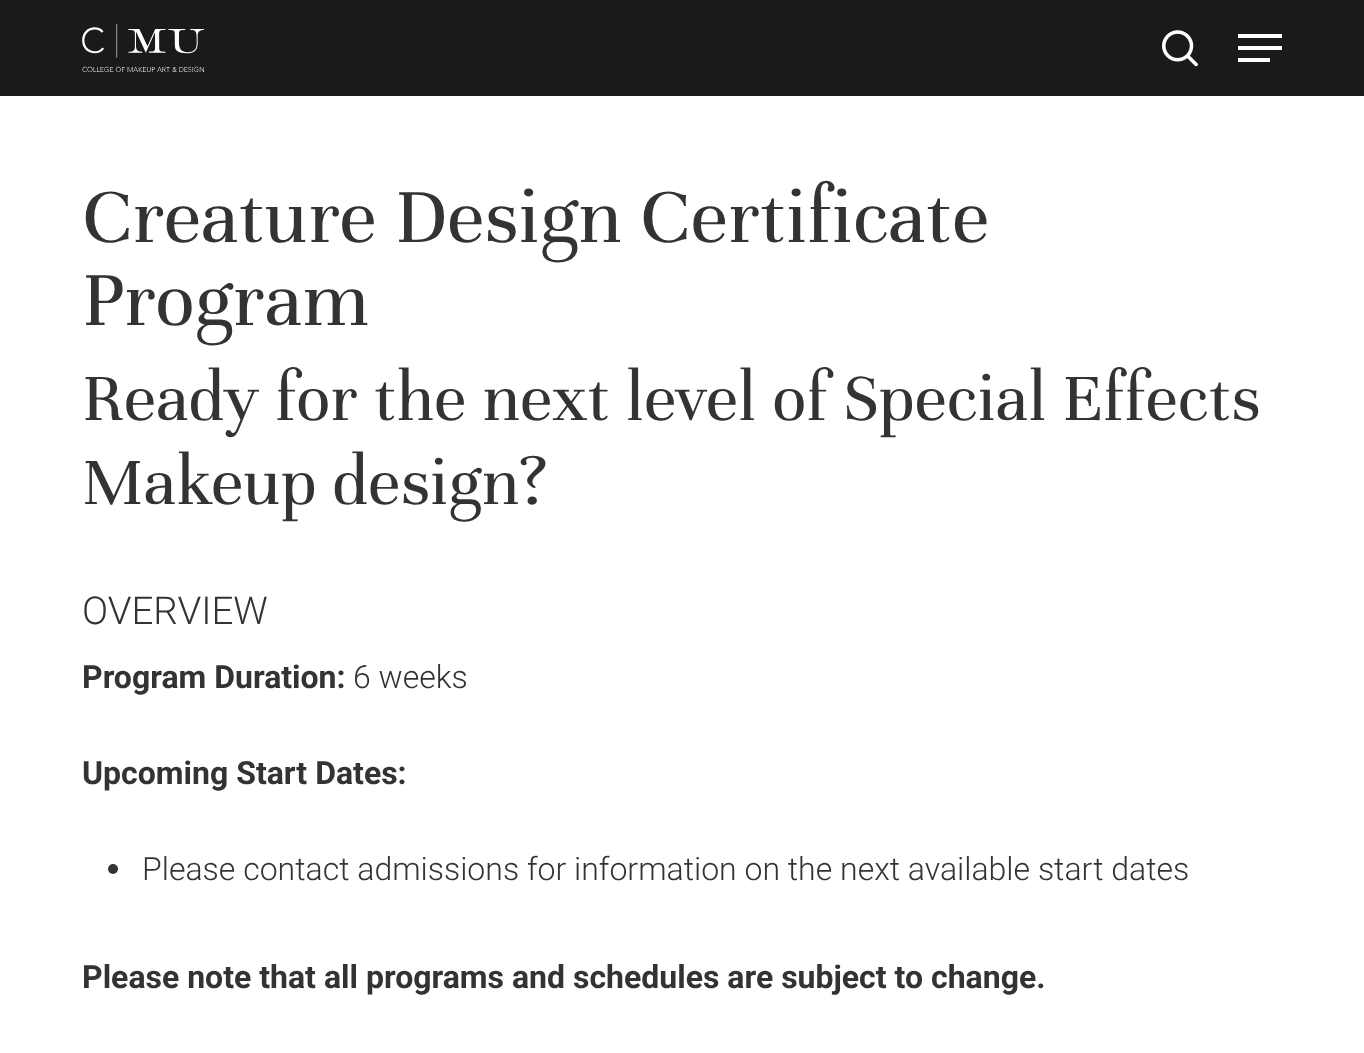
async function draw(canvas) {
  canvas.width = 1364;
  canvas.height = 1053;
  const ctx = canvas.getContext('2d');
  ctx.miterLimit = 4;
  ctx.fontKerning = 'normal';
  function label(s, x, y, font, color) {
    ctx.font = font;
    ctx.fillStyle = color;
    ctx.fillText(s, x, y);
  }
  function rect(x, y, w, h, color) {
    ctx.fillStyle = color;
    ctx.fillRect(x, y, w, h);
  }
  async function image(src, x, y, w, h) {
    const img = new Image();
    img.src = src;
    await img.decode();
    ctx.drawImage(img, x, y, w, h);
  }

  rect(0, 0, 1364, 1053, '#fff');
  rect(0, 0, 1364, 96, '#1a1a1a');
  await image('assets/img1.png', 82, 24, 122, 48);
  await image('assets/img2.png', 1162, 30, 36, 37);
  rect(1238, 34, 44, 4, '#fff');
  rect(1238, 58, 32, 4, '#fff');
  rect(1238, 46, 44, 4, '#fff');
  label('Creature Design Certificate', 82, 242, '83.25px Unna', '#333');
  label('Program', 82, 325, '83.25px Unna', '#333');
  label('Ready for the next level of Special Effects', 82, 420, '72px Unna', '#333');
  label('Makeup design?', 82, 504, '72px Unna', '#333');
  label('OVERVIEW', 82, 624, '300 38.5px Roboto', '#333');
  label('Program Duration:', 82, 688, 'bold 32px Roboto', '#333');
  label('6 weeks', 353, 688, '300 32px Roboto', '#333');
  label('Upcoming Start Dates:', 82, 784, 'bold 32px Roboto', '#333');
  ctx.beginPath();
  ctx.arc(113, 869, 5, 0, 2 * Math.PI);
  ctx.fill();
  label('Please contact admissions for information on the next available start dates', 142, 880, '300 32px Roboto', '#333');
  label('Please note that all programs and schedules are subject to change.', 82, 988, 'bold 32px Roboto', '#333');
}

draw(document.querySelector('canvas'));
